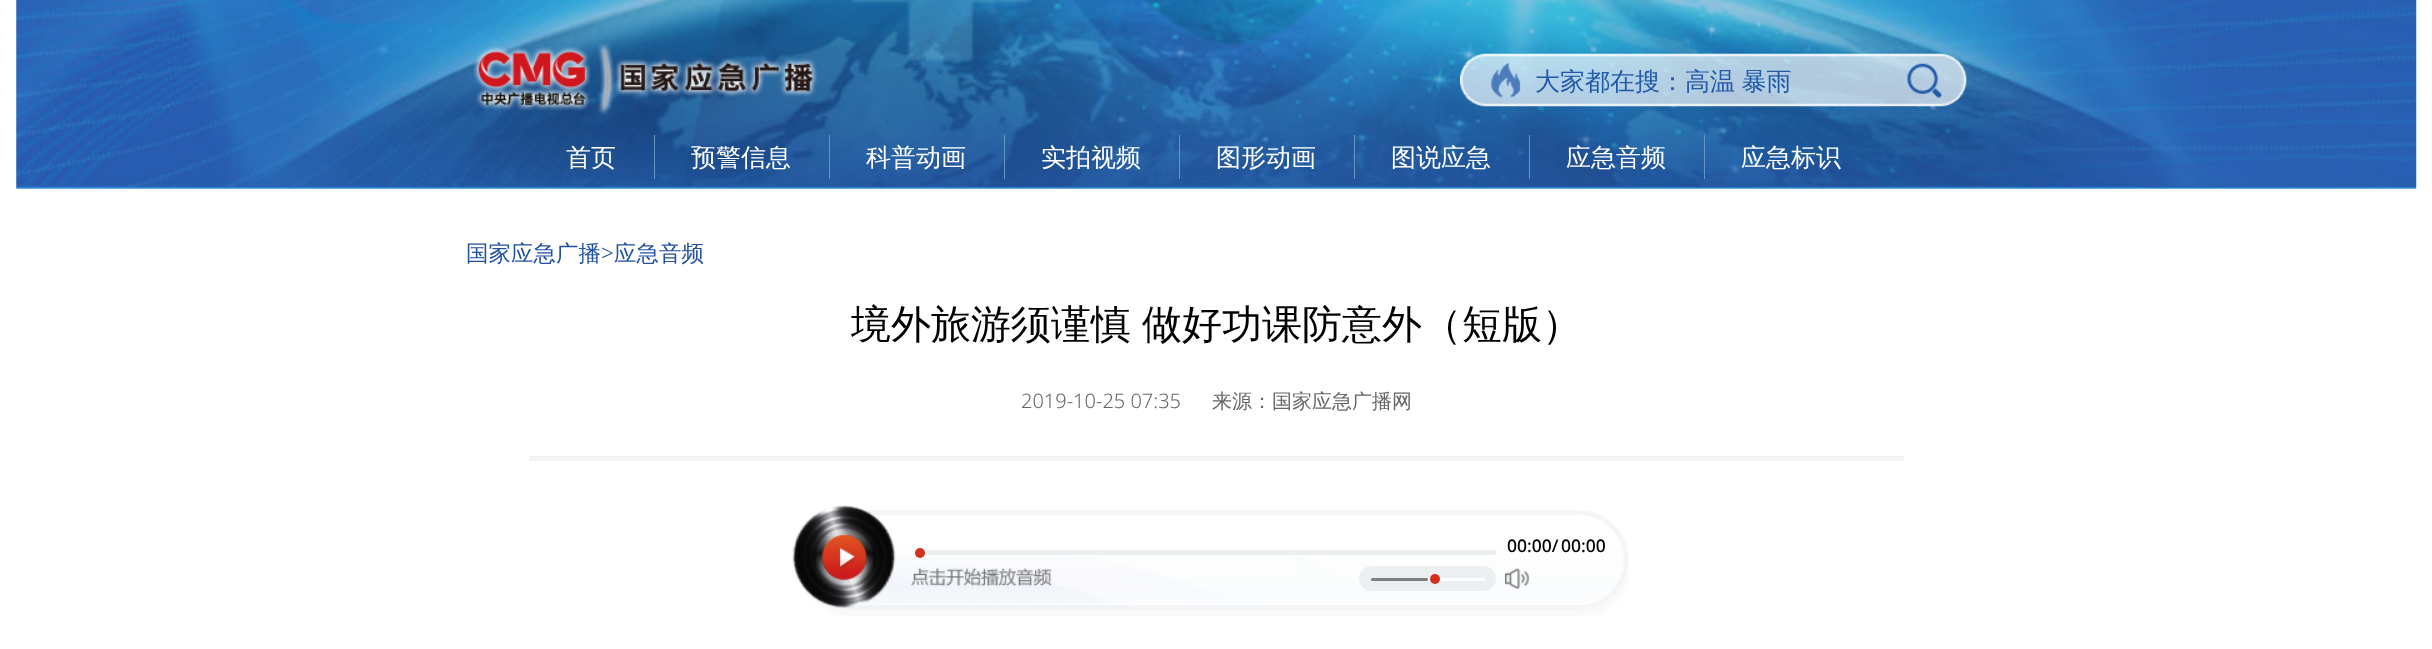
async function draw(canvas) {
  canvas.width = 2432;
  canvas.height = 649;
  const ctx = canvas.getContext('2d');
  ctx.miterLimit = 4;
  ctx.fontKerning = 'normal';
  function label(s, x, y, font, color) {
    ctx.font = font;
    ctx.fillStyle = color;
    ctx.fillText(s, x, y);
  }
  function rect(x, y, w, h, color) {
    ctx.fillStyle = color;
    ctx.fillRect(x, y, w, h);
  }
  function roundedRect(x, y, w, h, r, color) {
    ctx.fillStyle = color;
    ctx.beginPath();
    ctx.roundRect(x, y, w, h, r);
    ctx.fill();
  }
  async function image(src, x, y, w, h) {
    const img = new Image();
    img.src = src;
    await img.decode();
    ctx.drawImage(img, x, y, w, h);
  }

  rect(0, 0, 2432, 649, '#fff');
  await image('assets/img1.png', 16, 0, 2401, 189);
  await image('assets/img2.png', 473, 43, 345, 72);
  await image('assets/img3.png', 1460, 53, 507, 54);
  ctx.wordSpacing = '-1px';
  label('大家都在搜：高温 暴雨', 1535, 90, '500 25px WenQuanYi Zen Hei', '#2259a9');
  await image('assets/img4.png', 1907, 63, 35, 35);
  rect(654, 135, 1, 44, '#6595c2');
  ctx.wordSpacing = '0px';
  label('首页', 566, 166, '500 25px WenQuanYi Zen Hei', '#fff');
  rect(829, 135, 1, 44, '#6595c2');
  label('预警信息', 691, 166, '500 25px WenQuanYi Zen Hei', '#fff');
  rect(1004, 135, 1, 44, '#6595c2');
  label('科普动画', 866, 166, '500 25px WenQuanYi Zen Hei', '#fff');
  rect(1179, 135, 1, 44, '#6595c2');
  label('实拍视频', 1041, 166, '500 25px WenQuanYi Zen Hei', '#fff');
  rect(1354, 135, 1, 44, '#6595c2');
  label('图形动画', 1216, 166, '500 25px WenQuanYi Zen Hei', '#fff');
  rect(1529, 135, 1, 44, '#6595c2');
  label('图说应急', 1391, 166, '500 25px WenQuanYi Zen Hei', '#fff');
  rect(1704, 135, 1, 44, '#6595c2');
  label('应急音频', 1566, 166, '500 25px WenQuanYi Zen Hei', '#fff');
  label('应急标识', 1741, 166, '500 25px WenQuanYi Zen Hei', '#fff');
  label('国家应急广播', 466, 261, '500 22.5px WenQuanYi Zen Hei', '#2251a1');
  label('>', 601, 261, '300 22.5px Noto Sans', '#2251a1');
  label('应急音频', 614, 261, '500 22.5px WenQuanYi Zen Hei', '#2251a1');
  ctx.wordSpacing = '-1px';
  label('境外旅游须谨慎 做好功课防意外（短版）', 851, 338, '500 40px WenQuanYi Zen Hei', '#000');
  rect(529, 456, 1375, 5, '#f3f3f3');
  ctx.wordSpacing = '0px';
  label('2019-10-25 07:35', 1021, 408, '300 20px Noto Sans', '#666');
  label('来源：国家应急广播网', 1212, 408, '500 20px WenQuanYi Zen Hei', '#666');
  await image('assets/img5.png', 803, 510, 826, 106);
  await image('assets/img6.png', 792, 505, 104, 104);
  await image('assets/img7.png', 814, 525, 60, 64);
  roundedRect(920, 550, 576, 5, 2.5, '#ebeff2');
  ctx.fillStyle = '#d4311f';
  ctx.beginPath();
  ctx.arc(920, 553, 5, 0, 2 * Math.PI);
  ctx.fill();
  label('00:00/', 1507, 552, '500 17.5px Noto Sans', '#000');
  label('00:00', 1561, 552, '500 17.5px Noto Sans', '#000');
  await image('assets/img8.png', 911, 567, 141, 20);
  roundedRect(1359, 566, 137, 25, 12.5, '#ebeff2');
  roundedRect(1371, 578, 114, 3, 1.5, '#fff');
  roundedRect(1371, 578, 57, 3, 1.5, '#7d7f83');
  ctx.fillStyle = '#d32d1f';
  ctx.beginPath();
  ctx.arc(1435, 579, 5, 0, 2 * Math.PI);
  ctx.fill();
  await image('assets/img9.png', 1505, 568, 24, 21);
}

draw(document.querySelector('canvas'));
